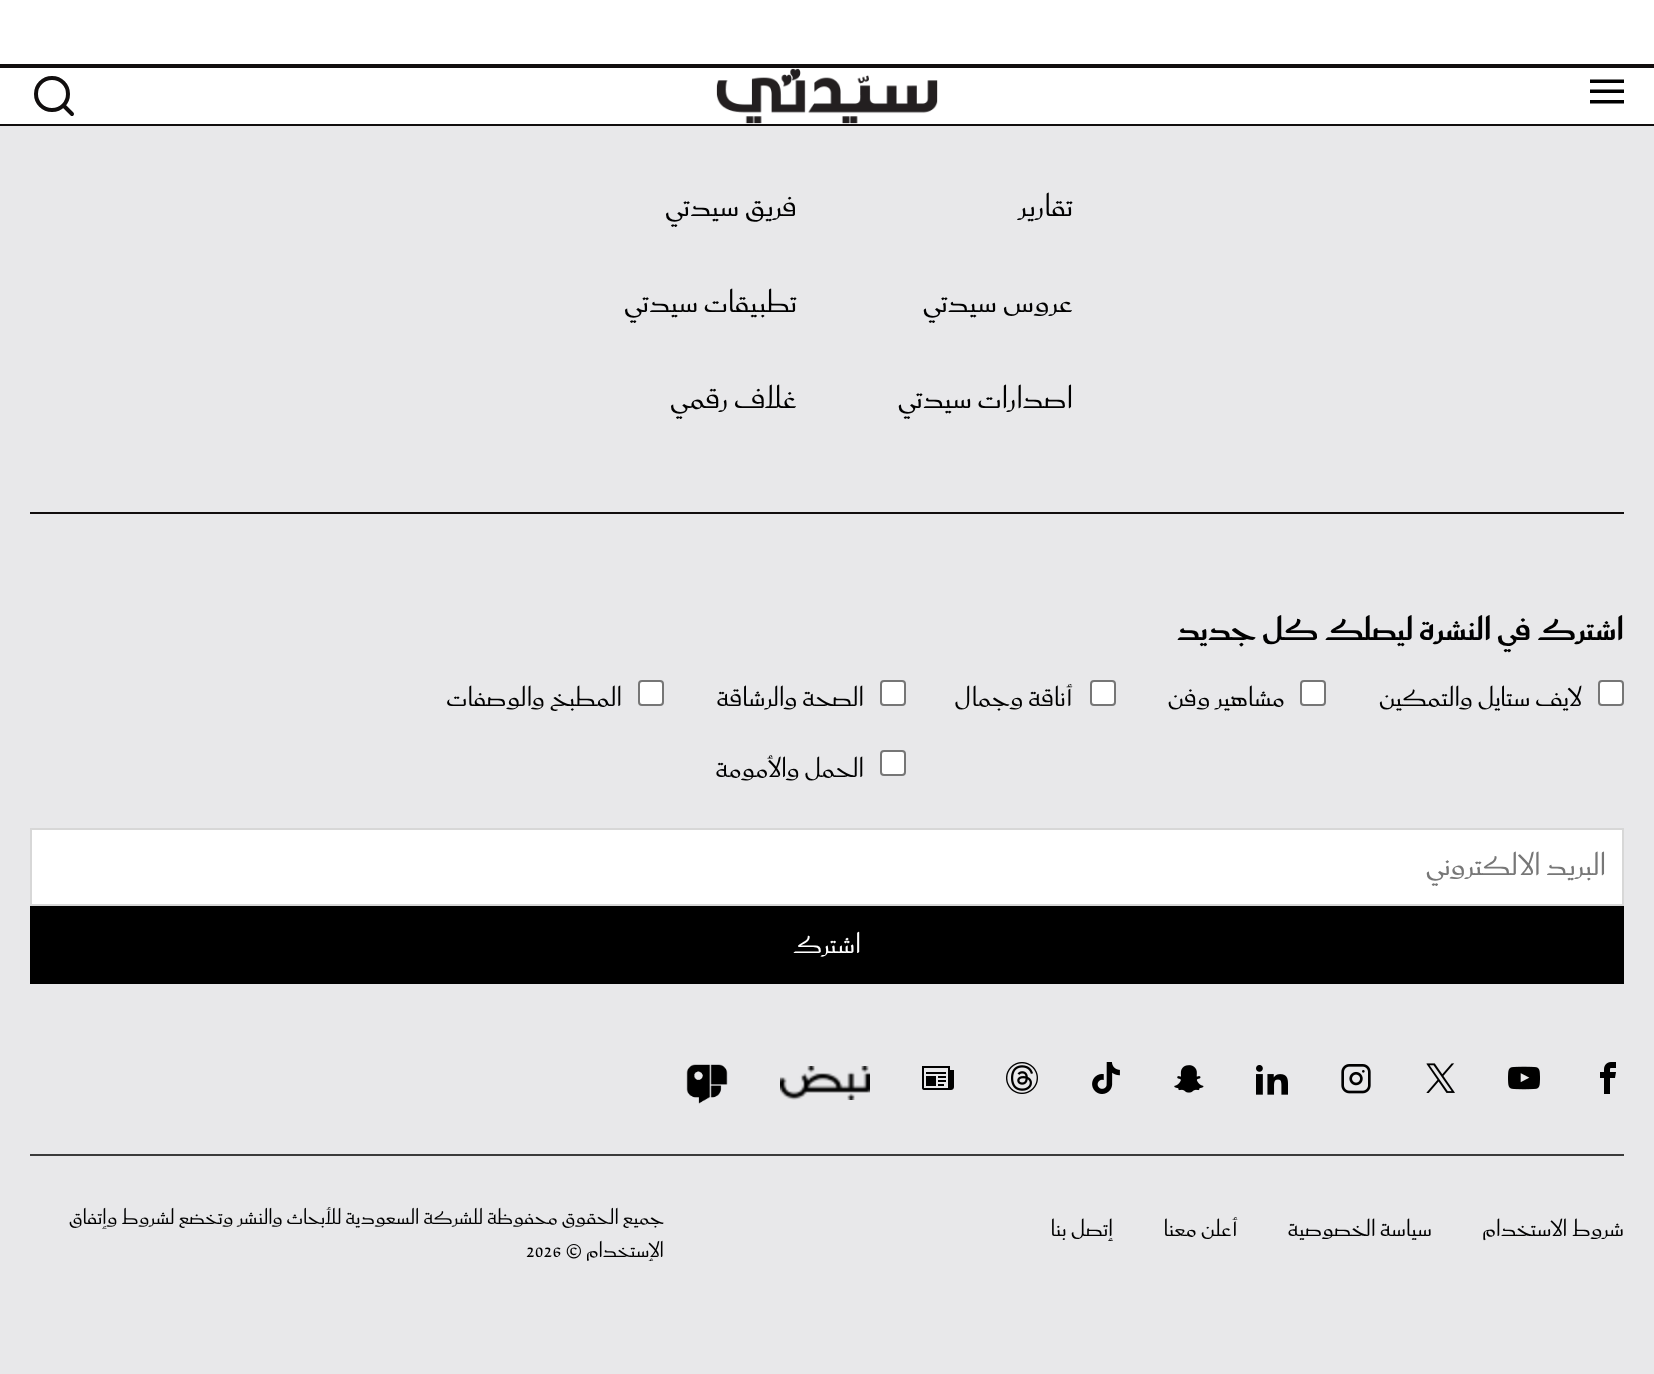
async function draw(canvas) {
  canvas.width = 1654;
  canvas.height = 1374;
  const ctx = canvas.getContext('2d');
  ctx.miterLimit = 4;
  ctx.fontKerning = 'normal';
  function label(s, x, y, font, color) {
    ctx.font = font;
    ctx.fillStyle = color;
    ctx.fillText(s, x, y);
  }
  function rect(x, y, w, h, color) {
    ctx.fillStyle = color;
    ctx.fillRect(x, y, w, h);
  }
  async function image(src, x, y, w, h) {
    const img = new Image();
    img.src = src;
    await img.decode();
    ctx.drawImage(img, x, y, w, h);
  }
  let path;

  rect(0, 0, 1654, 1374, '#e8e8ea');
  rect(0, 0, 1654, 124, '#fff');
  rect(0, 64, 1654, 4, '#110e0e');
  rect(0, 124, 1654, 2, '#110e0e');
  ctx.fillStyle = '#000';
  path = new Path2D('M1590 79.5H1624V83H1590ZM1590 89.5H1624V93H1590ZM1590 100H1624V103.5H1590Z');
  ctx.fill(path);
  await image('assets/img1.png', 716, 68, 222, 56);
  path = new Path2D('M72 114L63.5 105.5M68 94C68 103 61 110 52 110C43 110 36 103 36 94C36 85 43 78 52 78C61 78 68 85 68 94Z');
  ctx.strokeStyle = '#110e0e';
  ctx.lineWidth = 4;
  ctx.lineCap = 'round';
  ctx.lineJoin = 'round';
  ctx.stroke(path);
  ctx.direction = 'rtl';
  label('تقارير', 1073, 216, '32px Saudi', '#000');
  label('عروس سيدتي', 1073, 312, '32px Saudi', '#000');
  label('اصدارات سيدتي', 1073, 408, '32px Saudi', '#000');
  label('فريق سيدتي', 797, 216, '32px Saudi', '#000');
  label('تطبيقات سيدتي', 797, 312, '32px Saudi', '#000');
  label('غلاف رقمي', 797, 408, '32px Saudi', '#000');
  rect(30, 512, 1594, 2, '#110e0e');
  label('اشترك في النشرة ليصلك كل جديد', 1624, 640, 'bold 34px Saudi', '#000');
  ctx.fillStyle = '#fff';
  ctx.beginPath();
  ctx.roundRect(1599, 681, 24, 24, 3);
  ctx.fill();
  ctx.strokeStyle = '#767676';
  ctx.lineWidth = 2;
  ctx.lineJoin = 'miter';
  ctx.stroke();
  label('لايف ستايل والتمكين', 1582, 706, '28px Saudi', '#000');
  ctx.fillStyle = '#fff';
  ctx.beginPath();
  ctx.roundRect(1301, 681, 24, 24, 3);
  ctx.fill();
  ctx.stroke();
  label('مشاهير وفن', 1285, 706, '28px Saudi', '#000');
  ctx.fillStyle = '#fff';
  ctx.beginPath();
  ctx.roundRect(1091, 681, 24, 24, 3);
  ctx.fill();
  ctx.stroke();
  label('أناقة وجمال', 1073, 706, '28px Saudi', '#000');
  ctx.fillStyle = '#fff';
  ctx.beginPath();
  ctx.roundRect(881, 681, 24, 24, 3);
  ctx.fill();
  ctx.stroke();
  label('الصحة والرشاقة', 864, 706, '28px Saudi', '#000');
  ctx.fillStyle = '#fff';
  ctx.beginPath();
  ctx.roundRect(639, 681, 24, 24, 3);
  ctx.fill();
  ctx.stroke();
  label('المطبخ والوصفات', 622, 706, '28px Saudi', '#000');
  ctx.fillStyle = '#fff';
  ctx.beginPath();
  ctx.roundRect(881, 751, 24, 24, 3);
  ctx.fill();
  ctx.stroke();
  label('الحمل والأمومة', 864, 777, '28px Saudi', '#000');
  ctx.fillStyle = '#fff';
  ctx.beginPath();
  ctx.rect(31, 829, 1592, 76);
  ctx.fill();
  ctx.strokeStyle = '#d7d7d7';
  ctx.stroke();
  label('البريد الالكتروني', 1606, 875, '32px Saudi', '#777');
  rect(30, 906, 1594, 78, '#000');
  label('اشترك', 861, 953, '29px Saudi', '#fff');
  await image('assets/img2.png', 1600, 1062, 16, 32);
  await image('assets/img3.png', 1508, 1066, 32, 24);
  await image('assets/img4.png', 1426, 1063, 29, 30);
  await image('assets/img5.png', 1341, 1064, 30, 30);
  await image('assets/img6.png', 1256, 1065, 32, 30);
  await image('assets/img7.png', 1174, 1065, 30, 28);
  await image('assets/img8.png', 1092, 1062, 28, 32);
  await image('assets/img9.png', 1006, 1062, 32, 32);
  await image('assets/img10.png', 922, 1066, 32, 24);
  await image('assets/img11.png', 780, 1066, 90, 34);
  await image('assets/img12.png', 686, 1064, 42, 40);
  rect(30, 1154, 1594, 2, '#3b3b3b');
  label('شروط الاستخدام', 1624, 1236, '24px Saudi', '#000');
  label('سياسة الخصوصية', 1432, 1236, '24px Saudi', '#000');
  label('أعلن معنا', 1238, 1236, '24px Saudi', '#000');
  label('إتصل بنا', 1113, 1236, '24px Saudi', '#000');
  label('جميع الحقوق محفوظة للشركة السعودية للأبحاث والنشر وتخضع لشروط وإتفاق', 664, 1224, '22px Saudi', '#000');
  label('الإستخدام ©', 664, 1257, '22px Saudi', '#000');
  ctx.direction = 'ltr';
  label('2026', 526, 1257, '22px Saudi', '#000');
}

draw(document.querySelector('canvas'));
